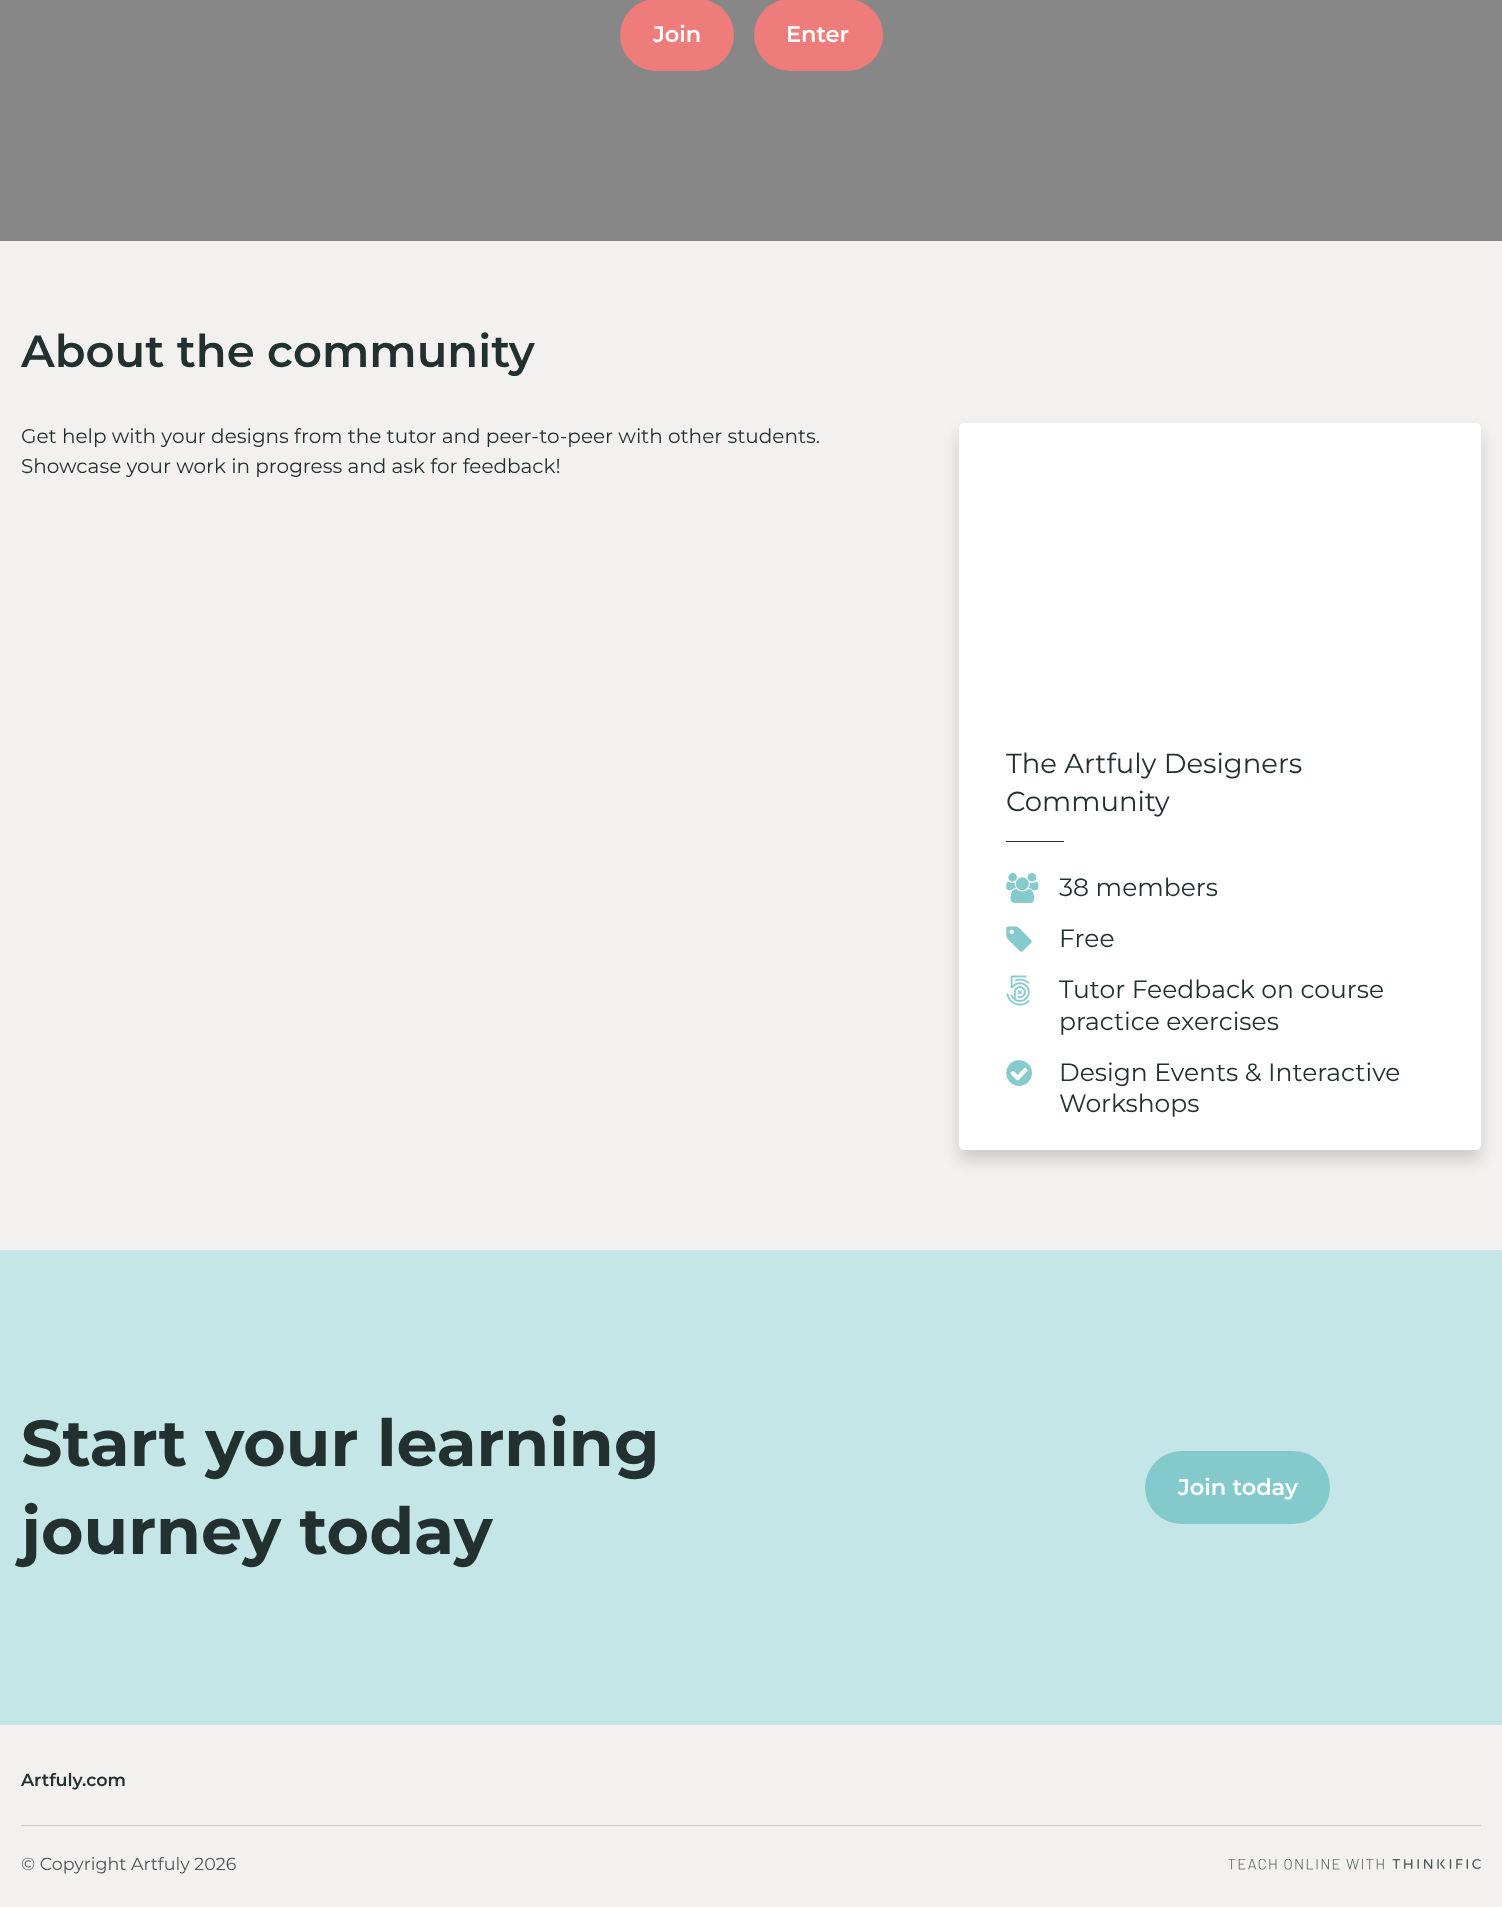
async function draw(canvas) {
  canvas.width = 1502;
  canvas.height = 1907;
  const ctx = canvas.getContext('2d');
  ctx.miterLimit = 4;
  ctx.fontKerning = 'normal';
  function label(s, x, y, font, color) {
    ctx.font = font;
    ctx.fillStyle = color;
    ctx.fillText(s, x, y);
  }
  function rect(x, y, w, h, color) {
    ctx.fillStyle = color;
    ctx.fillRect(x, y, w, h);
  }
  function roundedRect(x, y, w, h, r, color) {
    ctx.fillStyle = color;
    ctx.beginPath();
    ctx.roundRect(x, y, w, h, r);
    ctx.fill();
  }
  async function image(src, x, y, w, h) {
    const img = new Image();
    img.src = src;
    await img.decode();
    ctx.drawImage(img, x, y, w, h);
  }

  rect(0, 0, 1502, 1907, '#f3f0f0');
  rect(0, 0, 1502, 241, '#888787');
  roundedRect(620, -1, 114, 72, 36, '#ee7c7b');
  label('Join', 653, 42, '600 22.5px Montserrat', '#fff');
  roundedRect(754, -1, 129, 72, 36, '#ee7c7b');
  label('Enter', 786, 42, '600 22.5px Montserrat', '#fff');
  label('About the community', 21, 367, '600 45px Montserrat', '#233030');
  label('Get help with your designs from the tutor and peer-to-peer with other students.', 21, 443, '20px Montserrat', '#233030');
  label('Showcase your work in progress and ask for feedback!', 21, 473, '20px Montserrat', '#233030');
  ctx.fillStyle = '#00000026';
  ctx.filter = 'blur(7.5px)';
  ctx.beginPath();
  ctx.roundRect(959, 433, 522, 727, 5);
  ctx.fill();
  ctx.filter = 'none';
  roundedRect(959, 423, 522, 727, 5, '#fff');
  label('The Artfuly Designers', 1006, 773, '27.5px Montserrat', '#233030');
  label('Community', 1006, 811, '27.5px Montserrat', '#233030');
  rect(1006, 841, 58, 1, '#233030');
  await image('assets/img1.png', 1006, 873, 33, 31);
  label('38 members', 1059, 896, '25px Montserrat', '#233030');
  await image('assets/img2.png', 1006, 926, 26, 26);
  label('Free', 1059, 947, '25px Montserrat', '#233030');
  await image('assets/img3.png', 1006, 975, 24, 31);
  label('Tutor Feedback on course', 1059, 998, '25px Montserrat', '#233030');
  label('practice exercises', 1059, 1030, '25px Montserrat', '#233030');
  await image('assets/img4.png', 1006, 1060, 26, 26);
  label('Design Events & Interactive', 1059, 1081, '25px Montserrat', '#233030');
  label('Workshops', 1059, 1112, '25px Montserrat', '#233030');
  rect(0, 1250, 1502, 475, '#c5e6e7');
  label('Start your learning', 21, 1466, 'bold 65px Montserrat', '#233030');
  label('journey today', 21, 1554, 'bold 65px Montserrat', '#233030');
  roundedRect(1145, 1451, 185, 73, 36.5, '#84cacc');
  label('Join today', 1178, 1495, '600 22.5px Montserrat', '#fff');
  label('Artfuly.com', 21, 1786, '600 17.5px Montserrat', '#233030');
  rect(21, 1825, 1460, 1, '#c9caca');
  label('© Copyright Artfuly 2026', 21, 1870, '17.5px Montserrat', '#4d5656');
  await image('assets/img5.png', 1228, 1859, 253, 11);
}

draw(document.querySelector('canvas'));
